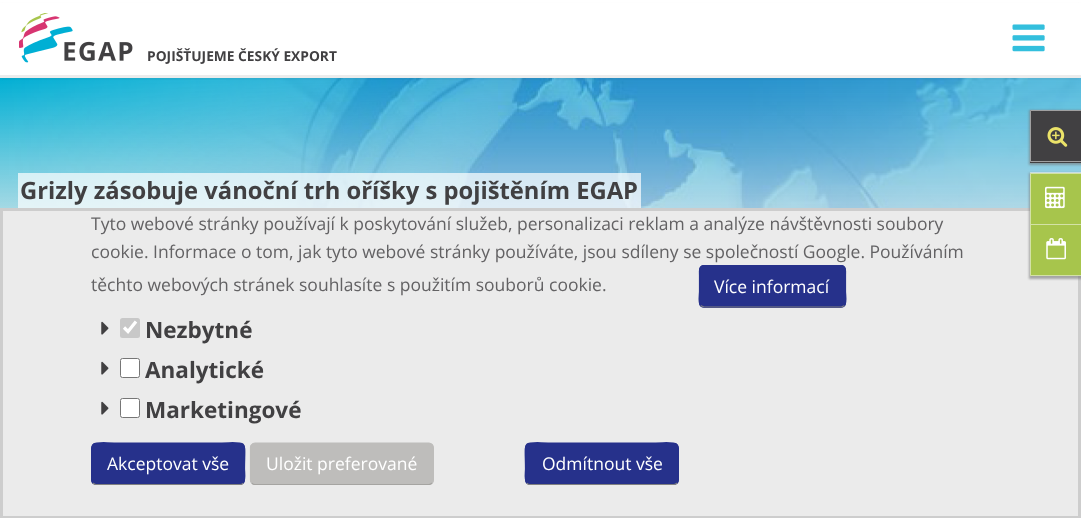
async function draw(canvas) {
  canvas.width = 1081;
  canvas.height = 518;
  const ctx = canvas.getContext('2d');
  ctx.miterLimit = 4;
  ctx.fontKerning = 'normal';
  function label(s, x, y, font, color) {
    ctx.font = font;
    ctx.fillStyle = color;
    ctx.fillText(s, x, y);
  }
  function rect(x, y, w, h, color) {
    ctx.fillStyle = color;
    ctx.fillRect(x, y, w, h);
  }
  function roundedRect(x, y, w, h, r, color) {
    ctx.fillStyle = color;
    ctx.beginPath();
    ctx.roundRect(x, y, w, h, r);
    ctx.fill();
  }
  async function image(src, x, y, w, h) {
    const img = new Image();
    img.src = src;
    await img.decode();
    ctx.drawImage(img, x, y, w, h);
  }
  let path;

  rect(0, 0, 1081, 518, '#fff');
  await image('assets/img3.png', 0, 78, 1081, 130);
  ctx.fillStyle = '#4140421a';
  ctx.filter = 'blur(1px)';
  ctx.beginPath();
  ctx.rect(1, 4, 1079, 75);
  ctx.fill();
  ctx.filter = 'none';
  rect(0, 3, 1081, 72, '#fff');
  rect(0, 75, 1081, 3, '#ececec');
  await image('assets/img1.png', 1012, 24, 33, 28);
  await image('assets/img2.png', 19, 13, 114, 50);
  label('POJIŠŤUJEME ČESKÝ EXPORT', 147, 61, 'bold 13.75px Open Sans', '#414042');
  rect(18, 173, 623, 35, '#ffffffb3');
  label('Grizly zásobuje vánoční trh oříšky s pojištěním EGAP', 20, 199, 'bold 23.75px Open Sans', '#414042');
  ctx.fillStyle = '#77777799';
  ctx.filter = 'blur(1px)';
  ctx.beginPath();
  ctx.rect(1029, 110, 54, 55);
  ctx.fill();
  ctx.filter = 'none';
  rect(1030, 110, 51, 53, '#414042');
  ctx.fillStyle = '#a0a0a1';
  path = new Path2D('M1030 110H1081V111H1031ZM1081 162H1030L1031 161H1081Z');
  ctx.fill(path);
  ctx.fillStyle = '#ffffff80';
  path = new Path2D('M1030 162V110L1031 111V161Z');
  ctx.fill(path);
  await image('assets/img4.png', 1047, 127, 21, 20);
  ctx.fillStyle = '#ebebeb';
  ctx.beginPath();
  ctx.rect(1.5, 209.5, 1078, 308);
  ctx.fill();
  ctx.strokeStyle = '#cdcdcd';
  ctx.lineWidth = 3;
  ctx.stroke();
  ctx.fillStyle = '#77777799';
  ctx.filter = 'blur(1px)';
  ctx.beginPath();
  ctx.rect(1029, 173, 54, 106);
  ctx.fill();
  ctx.filter = 'none';
  rect(1030, 173, 51, 103, '#a7c54c');
  ctx.fillStyle = '#ffffff80';
  path = new Path2D('M1030 172H1081V174H1031Z');
  ctx.fill(path);
  ctx.fillStyle = '#d3e2a6';
  path = new Path2D('M1081 276H1030L1031 275H1081Z');
  ctx.fill(path);
  ctx.fillStyle = '#ffffff80';
  path = new Path2D('M1030 276V172L1031 174V275Z');
  ctx.fill(path);
  rect(1031, 224, 50, 1, '#d3e2a6');
  await image('assets/img5.png', 1045, 186, 20, 23);
  await image('assets/img6.png', 1046, 238, 20, 22);
  label('Tyto webové stránky používají k poskytování služeb, personalizaci reklam a analýze návštěvnosti soubory', 91, 230, '17.5px Open Sans', '#636264');
  label('cookie. Informace o tom, jak tyto webové stránky používáte, jsou sdíleny se společností Google. Používáním', 91, 258, '17.5px Open Sans', '#636264');
  label('těchto webových stránek souhlasíte s použitím souborů cookie.', 91, 291, '17.5px Open Sans', '#636264');
  roundedRect(699, 265, 147, 43, 5, '#26318b');
  path = new Path2D('M844.5 305.5L841.5 307H726.5H704L700.5 305.5');
  ctx.strokeStyle = '#808080';
  ctx.lineWidth = 1.2;
  ctx.stroke(path);
  path = new Path2D('M700.5 305.5C698 303 699.5 294.5 699.5 291.5V275.5C699.5 272 698.5 265.5 704 265.5H841C846.5 265.5 845.5 272 845.5 275.5V291.5C845.5 294.5 847 303 844.5 305.5');
  ctx.strokeStyle = '#26318b';
  ctx.stroke(path);
  label('Více informací', 714, 293, '17.5px Open Sans', '#fff');
  await image('assets/img7.png', 101, 321, 8, 14);
  roundedRect(120, 318, 20, 20, 2.5, '#c8c8c8');
  path = new Path2D('M124 327.5L128 331.5L136 321.5');
  ctx.strokeStyle = '#fff';
  ctx.lineWidth = 3.2;
  ctx.stroke(path);
  label('Nezbytné', 145, 338, 'bold 22.5px Open Sans', '#414042');
  await image('assets/img7.png', 101, 361, 8, 14);
  ctx.fillStyle = '#fff';
  ctx.beginPath();
  ctx.roundRect(120.5, 358.5, 19, 19, 2);
  ctx.fill();
  ctx.strokeStyle = '#767676';
  ctx.lineWidth = 1;
  ctx.stroke();
  label('Analytické', 145, 378, 'bold 22.5px Open Sans', '#414042');
  await image('assets/img7.png', 101, 401, 8, 14);
  ctx.fillStyle = '#fff';
  ctx.beginPath();
  ctx.roundRect(120.5, 398.5, 19, 19, 2);
  ctx.fill();
  ctx.stroke();
  label('Marketingové', 145, 418, 'bold 22.5px Open Sans', '#414042');
  roundedRect(91, 443, 154, 42, 5, '#26318b');
  ctx.save();
  ctx.beginPath();
  ctx.rect(3, 210, 1076, 275);
  ctx.clip();
  path = new Path2D('M243 483C242.5 484 241 484.5 240 484.5H96C95 484.5 94 484 93 483');
  ctx.strokeStyle = '#808080';
  ctx.lineWidth = 1.2;
  ctx.stroke(path);
  ctx.restore();
  path = new Path2D('M93 483C90.5 480.5 92 472 92 469C92 437.5 86.5 443 120 443H216C250 443 244.5 437.5 244.5 469C244.5 472 246 480.5 243 483');
  ctx.strokeStyle = '#26318b';
  ctx.lineWidth = 1.2;
  ctx.stroke(path);
  label('Akceptovat vše', 107, 470, '17.5px Open Sans', '#fff');
  roundedRect(250, 443, 184, 42, 5, '#bebdbb');
  ctx.save();
  ctx.beginPath();
  ctx.rect(3, 210, 1076, 275);
  ctx.clip();
  path = new Path2D('M432 483C431 484 430 484.5 429 484.5H255C254 484.5 252.5 484 252 483');
  ctx.strokeStyle = '#a5a4a1';
  ctx.stroke(path);
  ctx.restore();
  path = new Path2D('M252 483C251 482.5 250.5 481 250.5 480V447.5C250.5 446.5 251 445 252 444.5C252.5 443.5 254 443 255 443H429C430 443 431 443.5 432 444.5C432.5 445 433 446.5 433 447.5V480C433 481 432.5 482.5 432 483');
  ctx.strokeStyle = '#bebdbb';
  ctx.stroke(path);
  label('Uložit preferované', 266, 470, '17.5px Open Sans', '#fff');
  roundedRect(525, 443, 154, 42, 5, '#26318b');
  ctx.save();
  ctx.beginPath();
  ctx.rect(3, 210, 1076, 275);
  ctx.clip();
  path = new Path2D('M677 483C676 484 675 484.5 674 484.5H530C529 484.5 527.5 484 527 483');
  ctx.strokeStyle = '#808080';
  ctx.stroke(path);
  ctx.restore();
  path = new Path2D('M527 483C524 480.5 525.5 472 525.5 469C525.5 437.5 520 443 554 443H650C683.5 443 678 437.5 678 469C678 472 679.5 480.5 677 483');
  ctx.strokeStyle = '#26318b';
  ctx.stroke(path);
  label('Odmítnout vše', 542, 470, '17.5px Open Sans', '#fff');
}

draw(document.querySelector('canvas'));
